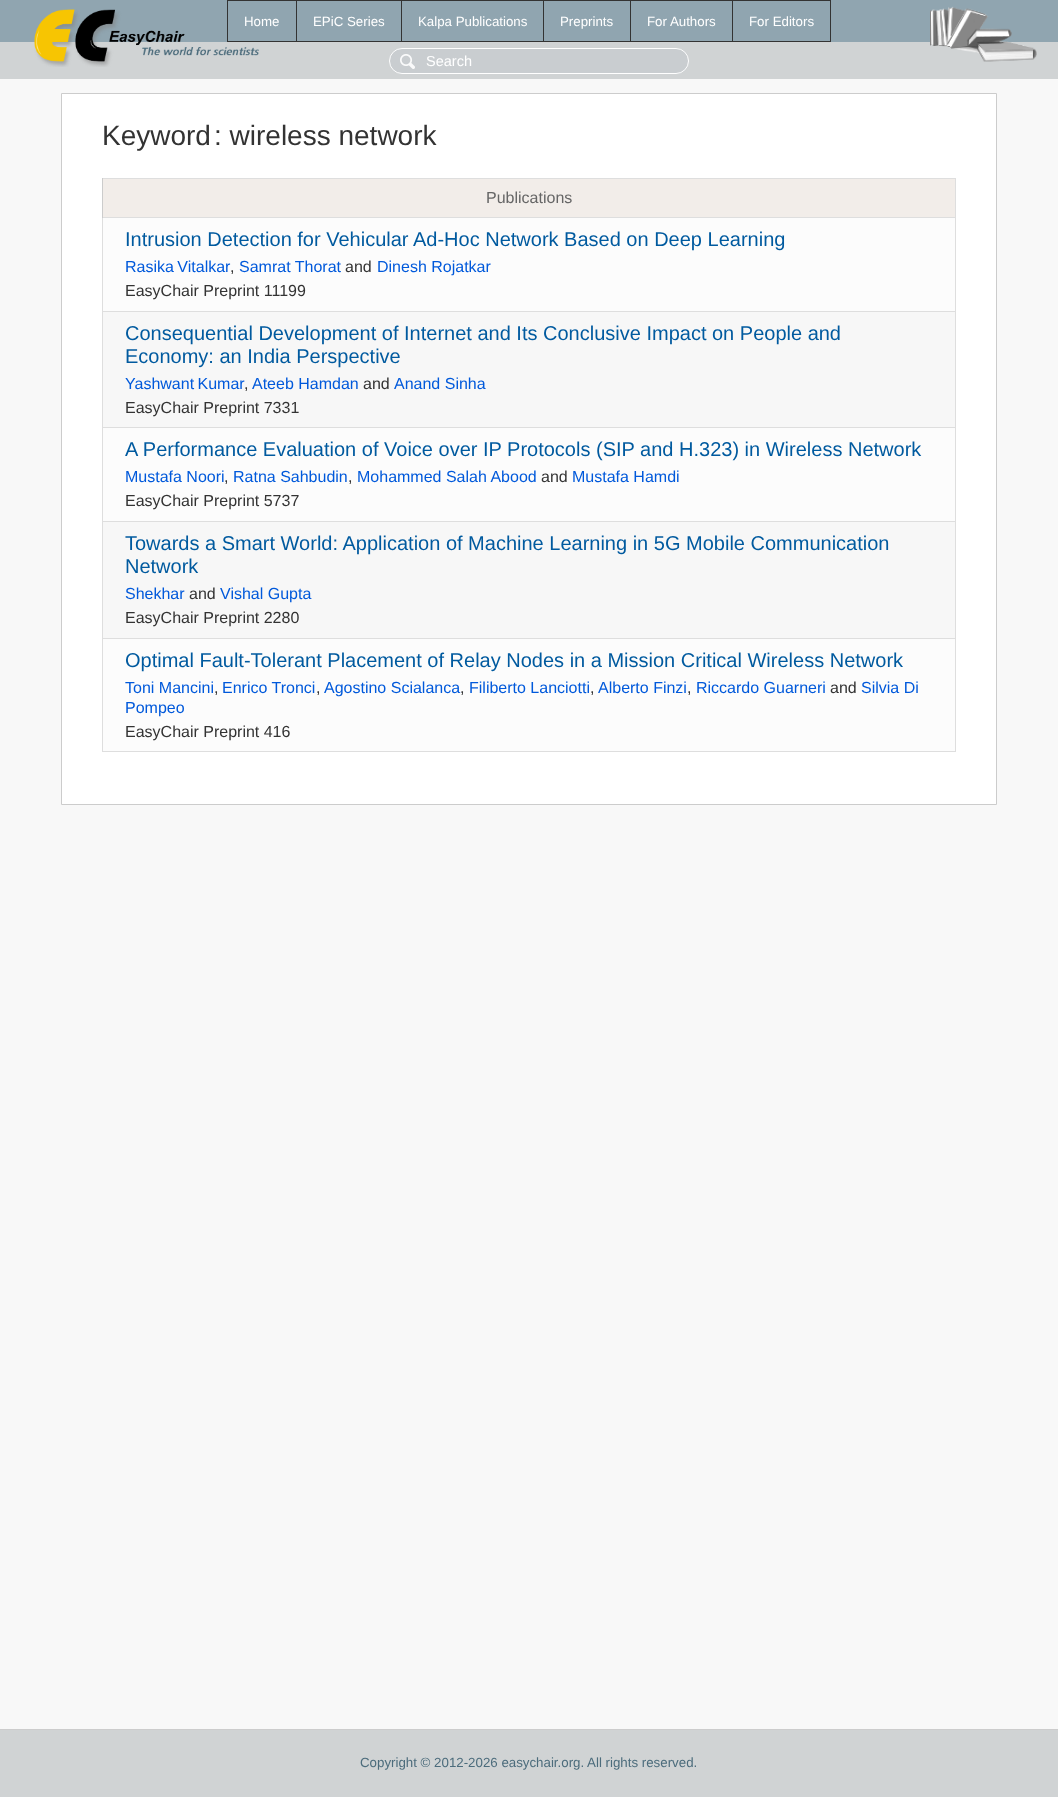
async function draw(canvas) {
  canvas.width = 1058;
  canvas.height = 1797;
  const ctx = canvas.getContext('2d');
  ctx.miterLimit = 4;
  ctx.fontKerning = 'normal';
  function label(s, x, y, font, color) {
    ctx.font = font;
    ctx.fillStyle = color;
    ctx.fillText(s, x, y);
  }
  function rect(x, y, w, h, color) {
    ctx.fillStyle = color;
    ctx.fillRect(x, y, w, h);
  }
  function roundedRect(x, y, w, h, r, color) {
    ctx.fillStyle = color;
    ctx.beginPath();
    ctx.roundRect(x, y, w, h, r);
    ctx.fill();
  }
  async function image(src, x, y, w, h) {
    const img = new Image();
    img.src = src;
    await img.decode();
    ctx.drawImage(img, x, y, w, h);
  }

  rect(0, 0, 1058, 1797, '#90a5b0');
  rect(0, 43, 1057, 35, '#d0d3d4');
  rect(0, 42, 1058, 1, '#d0d3d4');
  await image('assets/img1.png', 34, 9, 225, 58);
  rect(732, 0, 99, 1, '#333');
  rect(830, 0, 1, 42, '#333');
  rect(732, 41, 99, 1, '#333');
  rect(732, 0, 1, 42, '#333');
  rect(630, 0, 103, 1, '#333');
  rect(630, 41, 103, 1, '#333');
  rect(630, 0, 1, 42, '#333');
  rect(543, 0, 88, 1, '#333');
  rect(543, 41, 88, 1, '#333');
  rect(543, 0, 1, 42, '#333');
  rect(401, 0, 143, 1, '#333');
  rect(401, 41, 143, 1, '#333');
  rect(401, 0, 1, 42, '#333');
  rect(296, 0, 106, 1, '#333');
  rect(296, 41, 106, 1, '#333');
  rect(296, 0, 1, 42, '#333');
  rect(227, 0, 70, 1, '#333');
  rect(227, 41, 70, 1, '#333');
  rect(227, 0, 1, 42, '#333');
  label('Home', 244, 26, '13.3px Liberation Sans', '#fff');
  label('EPiC Series', 313, 26, '13.3px Liberation Sans', '#fff');
  label('Kalpa Publications', 418, 26, '13.3px Liberation Sans', '#fff');
  label('Preprints', 560, 26, '13.3px Liberation Sans', '#fff');
  label('For Authors', 647, 26, '13.3px Liberation Sans', '#fff');
  label('For Editors', 749, 26, '13.3px Liberation Sans', '#fff');
  await image('assets/img2.png', 930, 6, 107, 56);
  rect(1057, 42, 1, 37, '#d0d3d4');
  rect(0, 78, 1058, 1, '#d0d3d4');
  roundedRect(389, 48, 300, 26, 13, '#c9cdd0');
  await image('assets/img3.png', 400, 54, 15, 15);
  ctx.beginPath();
  ctx.roundRect(389.5, 48.5, 299, 25, 12.5);
  ctx.strokeStyle = '#fff';
  ctx.stroke();
  label('Search', 426, 66, '14.5px Liberation Sans', '#fff');
  rect(0, 79, 1058, 1650, '#f8f8f8');
  ctx.fillStyle = '#fff';
  ctx.beginPath();
  ctx.rect(61.5, 93.5, 935, 711);
  ctx.fill();
  ctx.strokeStyle = '#ccc';
  ctx.stroke();
  label('Keyword', 102, 145, '28px Liberation Sans', '#333');
  label(': wireless network', 214, 145, '28px Liberation Sans', '#333');
  rect(102, 178, 854, 1, '#dedede');
  rect(955, 178, 1, 574, '#dedede');
  rect(102, 751, 854, 1, '#dedede');
  rect(102, 218, 1, 534, '#dedede');
  rect(103, 179, 852, 38, '#f2ede9');
  rect(102, 217, 854, 1, '#dedede');
  rect(102, 178, 1, 40, '#ccc');
  label('Publications', 486, 203, '16px Liberation Sans', '#666');
  rect(103, 218, 852, 93, '#fcfcfc');
  rect(102, 311, 854, 1, '#dedede');
  label('Intrusion Detection for Vehicular Ad-Hoc Network Based on Deep Learning', 125, 246, '20px Liberation Sans', '#005a9f');
  ctx.wordSpacing = '-1px';
  label('Rasika Vitalkar', 125, 272, '16px Liberation Sans', '#0059db');
  ctx.wordSpacing = '0px';
  label(',', 230, 272, '16px Liberation Sans', '#333');
  label('Samrat Thorat', 239, 272, '16px Liberation Sans', '#0059db');
  label('and', 345, 272, '16px Liberation Sans', '#333');
  label('Dinesh Rojatkar', 377, 272, '16px Liberation Sans', '#0059db');
  label('EasyChair Preprint 11199', 125, 296, '16px Liberation Sans', '#333');
  rect(103, 312, 852, 115, '#f7f7f7');
  rect(102, 427, 854, 1, '#dedede');
  label('Consequential Development of Internet and Its Conclusive Impact on People and', 125, 340, '20px Liberation Sans', '#005a9f');
  label('Economy: an India Perspective', 125, 363, '20px Liberation Sans', '#005a9f');
  ctx.wordSpacing = '-1px';
  label('Yashwant Kumar', 125, 389, '16px Liberation Sans', '#0059db');
  ctx.wordSpacing = '0px';
  label(',', 244, 389, '16px Liberation Sans', '#333');
  label('Ateeb Hamdan', 252, 389, '16px Liberation Sans', '#0059db');
  label('and', 363, 389, '16px Liberation Sans', '#333');
  label('Anand Sinha', 394, 389, '16px Liberation Sans', '#0059db');
  label('EasyChair Preprint 7331', 125, 413, '16px Liberation Sans', '#333');
  rect(103, 428, 852, 93, '#fcfcfc');
  rect(102, 521, 854, 1, '#dedede');
  label('A Performance Evaluation of Voice over IP Protocols (SIP and H.323) in Wireless Network', 125, 456, '20px Liberation Sans', '#005a9f');
  label('Mustafa Noori', 125, 482, '16px Liberation Sans', '#0059db');
  label(',', 224, 482, '16px Liberation Sans', '#333');
  label('Ratna Sahbudin', 233, 482, '16px Liberation Sans', '#0059db');
  label(',', 348, 482, '16px Liberation Sans', '#333');
  label('Mohammed Salah Abood', 357, 482, '16px Liberation Sans', '#0059db');
  label('and', 541, 482, '16px Liberation Sans', '#333');
  label('Mustafa Hamdi', 572, 482, '16px Liberation Sans', '#0059db');
  label('EasyChair Preprint 5737', 125, 506, '16px Liberation Sans', '#333');
  rect(103, 522, 852, 116, '#f7f7f7');
  rect(102, 638, 854, 1, '#dedede');
  label('Towards a Smart World: Application of Machine Learning in 5G Mobile Communication', 125, 550, '20px Liberation Sans', '#005a9f');
  label('Network', 125, 573, '20px Liberation Sans', '#005a9f');
  label('Shekhar', 125, 599, '16px Liberation Sans', '#0059db');
  label('and', 189, 599, '16px Liberation Sans', '#333');
  label('Vishal Gupta', 220, 599, '16px Liberation Sans', '#0059db');
  label('EasyChair Preprint 2280', 125, 623, '16px Liberation Sans', '#333');
  rect(103, 639, 852, 112, '#fcfcfc');
  label('Optimal Fault-Tolerant Placement of Relay Nodes in a Mission Critical Wireless Network', 125, 667, '20px Liberation Sans', '#005a9f');
  label('Toni Mancini', 125, 693, '16px Liberation Sans', '#0059db');
  label(',', 214, 693, '16px Liberation Sans', '#333');
  label('Enrico Tronci', 222, 693, '16px Liberation Sans', '#0059db');
  label(',', 316, 693, '16px Liberation Sans', '#333');
  label('Agostino Scialanca', 324, 693, '16px Liberation Sans', '#0059db');
  label(',', 460, 693, '16px Liberation Sans', '#333');
  label('Filiberto Lanciotti', 469, 693, '16px Liberation Sans', '#0059db');
  label(',', 590, 693, '16px Liberation Sans', '#333');
  label('Alberto Finzi', 598, 693, '16px Liberation Sans', '#0059db');
  label(',', 687, 693, '16px Liberation Sans', '#333');
  label('Riccardo Guarneri', 696, 693, '16px Liberation Sans', '#0059db');
  label('and', 830, 693, '16px Liberation Sans', '#333');
  label('Silvia Di', 861, 693, '16px Liberation Sans', '#0059db');
  label('Pompeo', 125, 713, '16px Liberation Sans', '#0059db');
  label('EasyChair Preprint 416', 125, 737, '16px Liberation Sans', '#333');
  rect(0, 1730, 1058, 67, '#d0d3d4');
  rect(0, 1729, 1058, 1, '#ccc');
  label('Copyright © 2012-2026 easychair.org. All rights reserved.', 360, 1767, '13.3px Liberation Sans', '#4c6c7c');
}

draw(document.querySelector('canvas'));
